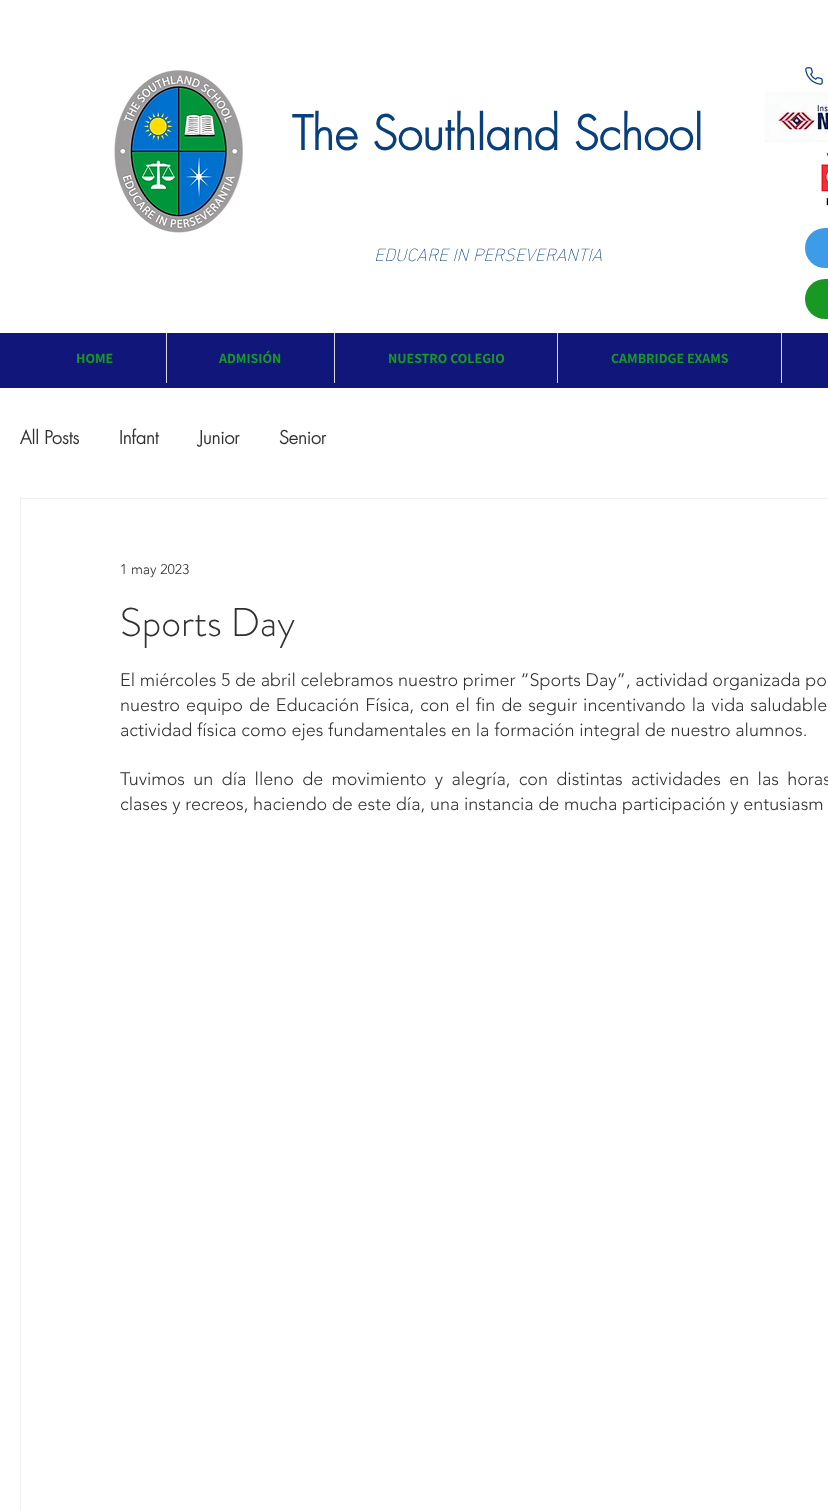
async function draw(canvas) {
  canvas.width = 828;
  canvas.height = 1510;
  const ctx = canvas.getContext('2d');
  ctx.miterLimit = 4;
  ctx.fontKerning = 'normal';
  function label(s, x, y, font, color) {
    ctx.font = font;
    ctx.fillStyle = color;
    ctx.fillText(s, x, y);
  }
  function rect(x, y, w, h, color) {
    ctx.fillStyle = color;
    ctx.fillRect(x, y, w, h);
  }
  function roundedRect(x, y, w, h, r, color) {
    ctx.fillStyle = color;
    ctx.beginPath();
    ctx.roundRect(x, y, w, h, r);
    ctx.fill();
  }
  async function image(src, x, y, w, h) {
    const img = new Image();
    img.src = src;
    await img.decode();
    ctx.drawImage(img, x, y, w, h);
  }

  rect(0, 0, 828, 1510, '#fff');
  await image('assets/img1.png', 114, 70, 129, 163);
  await image('assets/img2.png', 805, 67, 18, 18);
  label('The Southland School', 292, 150, 'bold 46px futura', '#093f7c');
  await image('assets/img3.png', 765, 92, 63, 50);
  await image('assets/img4.png', 821, 152, 7, 54);
  label('EDUCARE IN PERSEVERANTIA', 374, 261, 'italic 200 18px "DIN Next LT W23"', '#093f7c');
  roundedRect(805, 228, 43, 40, 20, '#3d9be8');
  roundedRect(805, 279, 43, 40, 20, '#179924');
  rect(0, 333, 828, 55, '#11167a');
  label('HOME', 76, 363, 'bold 14px Assistant', '#179924');
  rect(166, 333, 1, 50, '#dbdbdb');
  label('ADMISIÓN', 219, 363, 'bold 14px Assistant', '#179924');
  rect(334, 333, 1, 50, '#dbdbdb');
  label('NUESTRO COLEGIO', 388, 363, 'bold 14px Assistant', '#179924');
  rect(557, 333, 1, 50, '#dbdbdb');
  label('CAMBRIDGE EXAMS', 611, 363, 'bold 14px Assistant', '#179924');
  rect(781, 333, 1, 50, '#dbdbdb');
  label('All Posts', 20, 444, 'bold 18px futura', '#303030');
  label('Infant', 119, 444, 'bold 18px futura', '#303030');
  label('Junior', 199, 444, 'bold 18px futura', '#303030');
  label('Senior', 279, 444, 'bold 18px futura', '#303030');
  ctx.strokeStyle = '#eee';
  ctx.strokeRect(20.5, 498.5, 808, 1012);
  label('1 may 2023', 120, 574, '300 14px "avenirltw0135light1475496"', '#303030');
  label('Sports Day', 120, 636, '300 40px "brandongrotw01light"', '#303030');
  label('El miércoles 5 de abril celebramos nuestro primer “Sports Day”, actividad organizada po', 120, 686, '300 18px "avenirltw0135light1475496"', '#303030');
  ctx.wordSpacing = '1.25px';
  label('nuestro equipo de Educación Física, con el fin de seguir incentivando la vida saludable', 120, 711, '300 18px "avenirltw0135light1475496"', '#303030');
  ctx.wordSpacing = '0px';
  label('actividad física como ejes fundamentales en la formación integral de nuestro alumnos.', 120, 736, '300 18px "avenirltw0135light1475496"', '#303030');
  ctx.wordSpacing = '3.6px';
  label('Tuvimos un día lleno de movimiento y alegría, con distintas actividades en las horas', 120, 785, '300 18px "avenirltw0135light1475496"', '#303030');
  ctx.wordSpacing = '0px';
  label('clases y recreos, haciendo de este día, una instancia de mucha participación y entusiasm', 120, 810, '300 18px "avenirltw0135light1475496"', '#303030');
}

draw(document.querySelector('canvas'));
